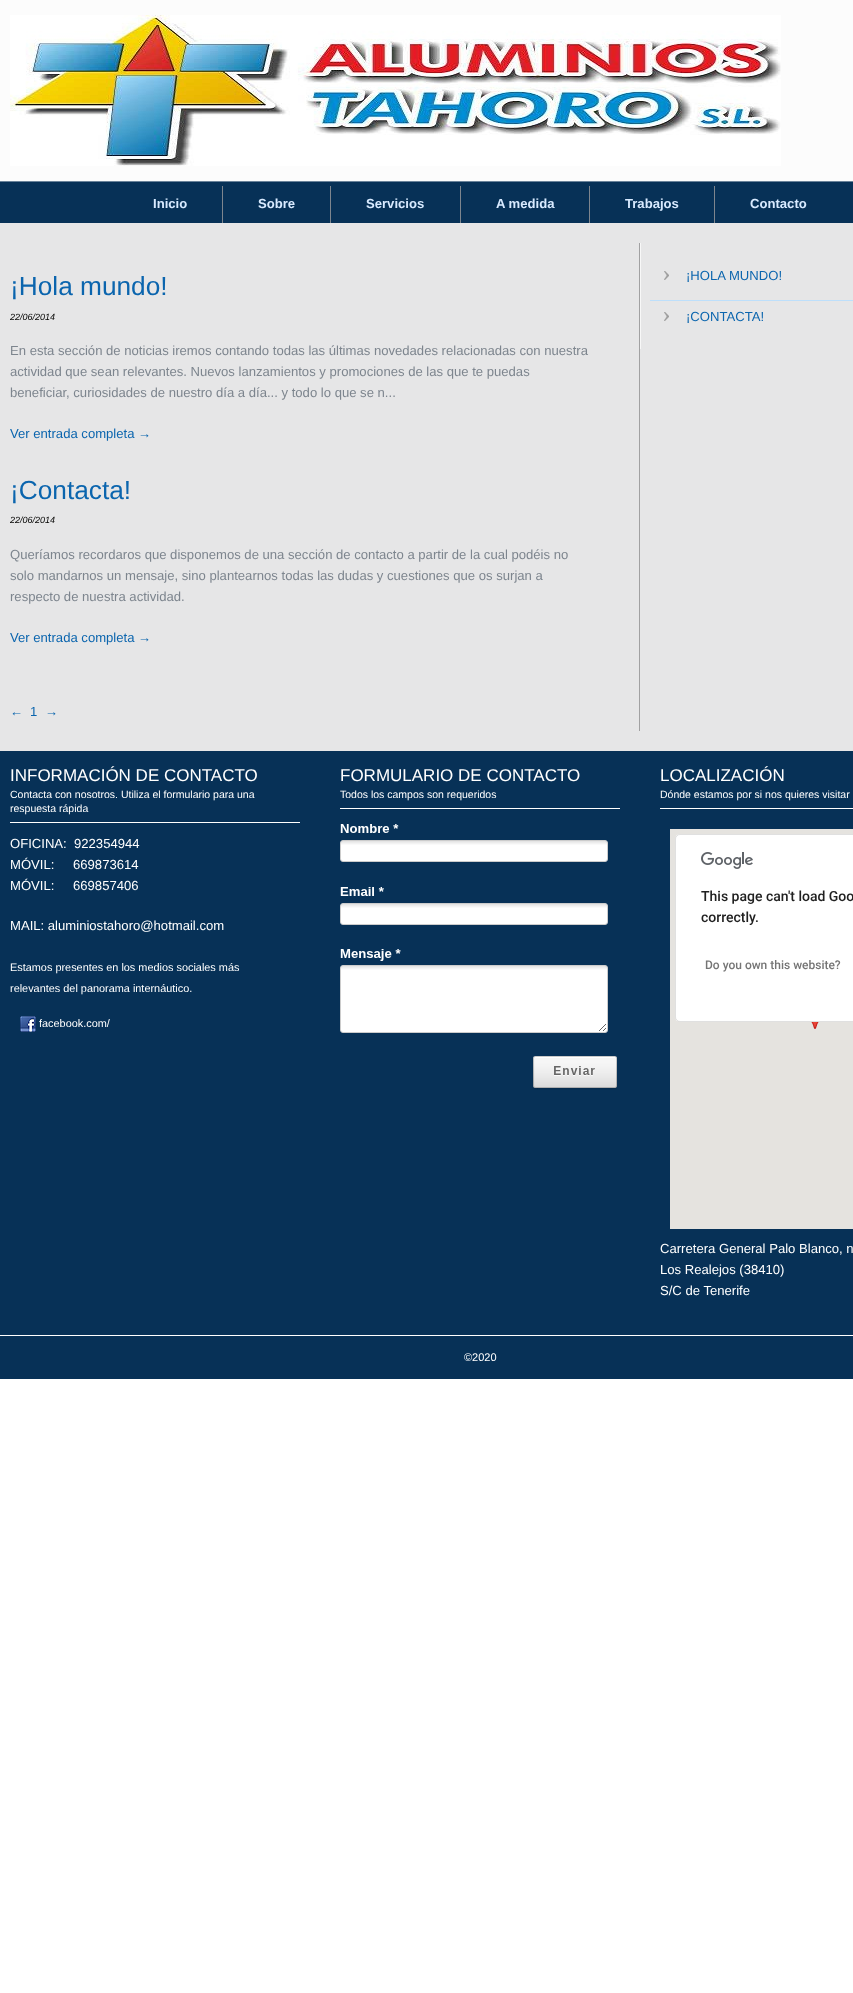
async function draw(canvas) {
  canvas.width = 853;
  canvas.height = 1993;
  const ctx = canvas.getContext('2d');
  ctx.miterLimit = 4;
  ctx.fontKerning = 'normal';
  function label(s, x, y, font, color) {
    ctx.font = font;
    ctx.fillStyle = color;
    ctx.fillText(s, x, y);
  }
  function rect(x, y, w, h, color) {
    ctx.fillStyle = color;
    ctx.fillRect(x, y, w, h);
  }
  function roundedRect(x, y, w, h, r, color) {
    ctx.fillStyle = color;
    ctx.beginPath();
    ctx.roundRect(x, y, w, h, r);
    ctx.fill();
  }
  async function image(src, x, y, w, h) {
    const img = new Image();
    img.src = src;
    await img.decode();
    ctx.drawImage(img, x, y, w, h);
  }

  rect(0, 0, 853, 1993, '#fff');
  rect(0, 223, 853, 528, '#e6e6e7');
  rect(0, 0, 853, 181, '#fcfcfc');
  await image('assets/img1.png', 10, 15, 771, 151);
  rect(0, 182, 853, 41, '#073157');
  rect(0, 181, 853, 1, '#6a839a');
  label('Inicio', 153, 208, 'bold 13.1px Liberation Sans', '#d8eaff');
  rect(222, 186, 1, 37, '#7d858e');
  label('Sobre', 258, 208, 'bold 13.1px Liberation Sans', '#d8eaff');
  rect(330, 186, 1, 37, '#7d858e');
  label('Servicios', 366, 208, 'bold 13.1px Liberation Sans', '#d8eaff');
  rect(460, 186, 1, 37, '#7d858e');
  label('A medida', 496, 208, 'bold 13.1px Liberation Sans', '#d8eaff');
  rect(589, 186, 1, 37, '#7d858e');
  label('Trabajos', 625, 208, 'bold 13.1px Liberation Sans', '#d8eaff');
  rect(714, 186, 1, 37, '#7d858e');
  label('Contacto', 750, 208, 'bold 13.1px Liberation Sans', '#d8eaff');
  rect(639, 243, 1, 488, '#a1a1a2');
  label('¡Hola mundo!', 10, 295, '26.25px Liberation Sans', '#0b65ae');
  label('22/06/2014', 10, 320, 'italic 9px Liberation Sans', '#020200');
  label('En esta sección de noticias iremos contando todas las últimas novedades relacionadas con nuestra', 10, 355, '13.1px Liberation Sans', '#7d858e');
  label('actividad que sean relevantes. Nuevos lanzamientos y promociones de las que te puedas', 10, 376, '13.1px Liberation Sans', '#7d858e');
  label('beneficiar, curiosidades de nuestro día a día... y todo lo que se n...', 10, 397, '13.1px Liberation Sans', '#7d858e');
  label('Ver entrada completa →', 10, 438, '13.1px Liberation Sans', '#0b65ae');
  label('¡Contacta!', 10, 499, '26.25px Liberation Sans', '#0b65ae');
  label('22/06/2014', 10, 523, 'italic 9px Liberation Sans', '#020200');
  label('Queríamos recordaros que disponemos de una sección de contacto a partir de la cual podéis no', 10, 559, '13.1px Liberation Sans', '#7d858e');
  label('solo mandarnos un mensaje, sino plantearnos todas las dudas y cuestiones que os surjan a', 10, 580, '13.1px Liberation Sans', '#7d858e');
  label('respecto de nuestra actividad.', 10, 601, '13.1px Liberation Sans', '#7d858e');
  label('Ver entrada completa →', 10, 642, '13.1px Liberation Sans', '#0b65ae');
  label('←', 10, 716, '13.1px Liberation Sans', '#0b65ae');
  label('1', 30, 716, '13.1px Liberation Sans', '#0b65ae');
  label('→', 45, 716, '13.1px Liberation Sans', '#0b65ae');
  rect(640, 243, 1, 106, '#f8f8f8');
  await image('assets/img2.png', 664, 271, 5, 9);
  label('¡HOLA MUNDO!', 686, 280, '13.1px Liberation Sans', '#0b65ae');
  await image('assets/img2.png', 664, 312, 5, 9);
  rect(650, 300, 203, 1, '#bddffb');
  label('¡CONTACTA!', 686, 321, '13.1px Liberation Sans', '#0b65ae');
  rect(0, 751, 853, 584, '#073157');
  label('INFORMACIÓN DE CONTACTO', 10, 781, '17px Liberation Sans', '#fff');
  rect(10, 822, 290, 1, '#fff');
  label('Contacta con nosotros. Utiliza el formulario para una', 10, 798, '10.5px Liberation Sans', '#fff');
  label('respuesta rápida', 10, 812, '10.5px Liberation Sans', '#fff');
  label('OFICINA:', 10, 848, '13.1px Liberation Sans', '#fff');
  label('922354944', 74, 848, '13.1px Liberation Sans', '#fff');
  label('MÓVIL:', 10, 869, '13.1px Liberation Sans', '#fff');
  label('669873614', 73, 869, '13.1px Liberation Sans', '#fff');
  label('MÓVIL:', 10, 890, '13.1px Liberation Sans', '#fff');
  label('669857406', 73, 890, '13.1px Liberation Sans', '#fff');
  label('MAIL: aluminiostahoro@hotmail.com', 10, 930, '13.1px Liberation Sans', '#fff');
  label('Estamos presentes en los medios sociales más', 10, 971, '10.9px Liberation Sans', '#fff');
  label('relevantes del panorama internáutico.', 10, 992, '10.9px Liberation Sans', '#fff');
  await image('assets/img3.png', 20, 1016, 16, 16);
  label('facebook.com/', 39, 1027, '10.9px Liberation Sans', '#fff');
  label('FORMULARIO DE CONTACTO', 340, 781, '17px Liberation Sans', '#fff');
  rect(340, 808, 280, 1, '#fff');
  label('Todos los campos son requeridos', 340, 798, '10.5px Liberation Sans', '#fff');
  await image('assets/img4.png', 340, 824, 277, 266);
  label('LOCALIZACIÓN', 660, 781, '17px Liberation Sans', '#fff');
  rect(660, 808, 193, 1, '#fff');
  label('Dónde estamos por si nos quieres visitar', 660, 798, '10.5px Liberation Sans', '#fff');
  rect(670, 829, 183, 400, '#e5e3df');
  await image('assets/img5.png', 811, 1022, 8, 7);
  roundedRect(675, 834, 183, 188, 5, '#fff');
  ctx.beginPath();
  ctx.roundRect(675.5, 834.5, 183, 187, 4.5);
  ctx.strokeStyle = '#0000001f';
  ctx.stroke();
  await image('assets/img6.png', 701, 852, 52, 17);
  label('This page can\'t load Goo', 701, 901, '500 14px Roboto', '#212121');
  label('correctly.', 701, 922, '500 14px Roboto', '#212121');
  label('Do you own this website?', 705, 969, '500 12px Roboto', '#757575');
  label('Carretera General Palo Blanco, n', 660, 1253, '13.1px Liberation Sans', '#fff');
  label('Los Realejos (38410)', 660, 1274, '13.1px Liberation Sans', '#fff');
  label('S/C de Tenerife', 660, 1295, '13.1px Liberation Sans', '#fff');
  rect(0, 1336, 853, 43, '#073157');
  label('©2020', 464, 1361, '11px Liberation Sans', '#fff');
}

draw(document.querySelector('canvas'));
